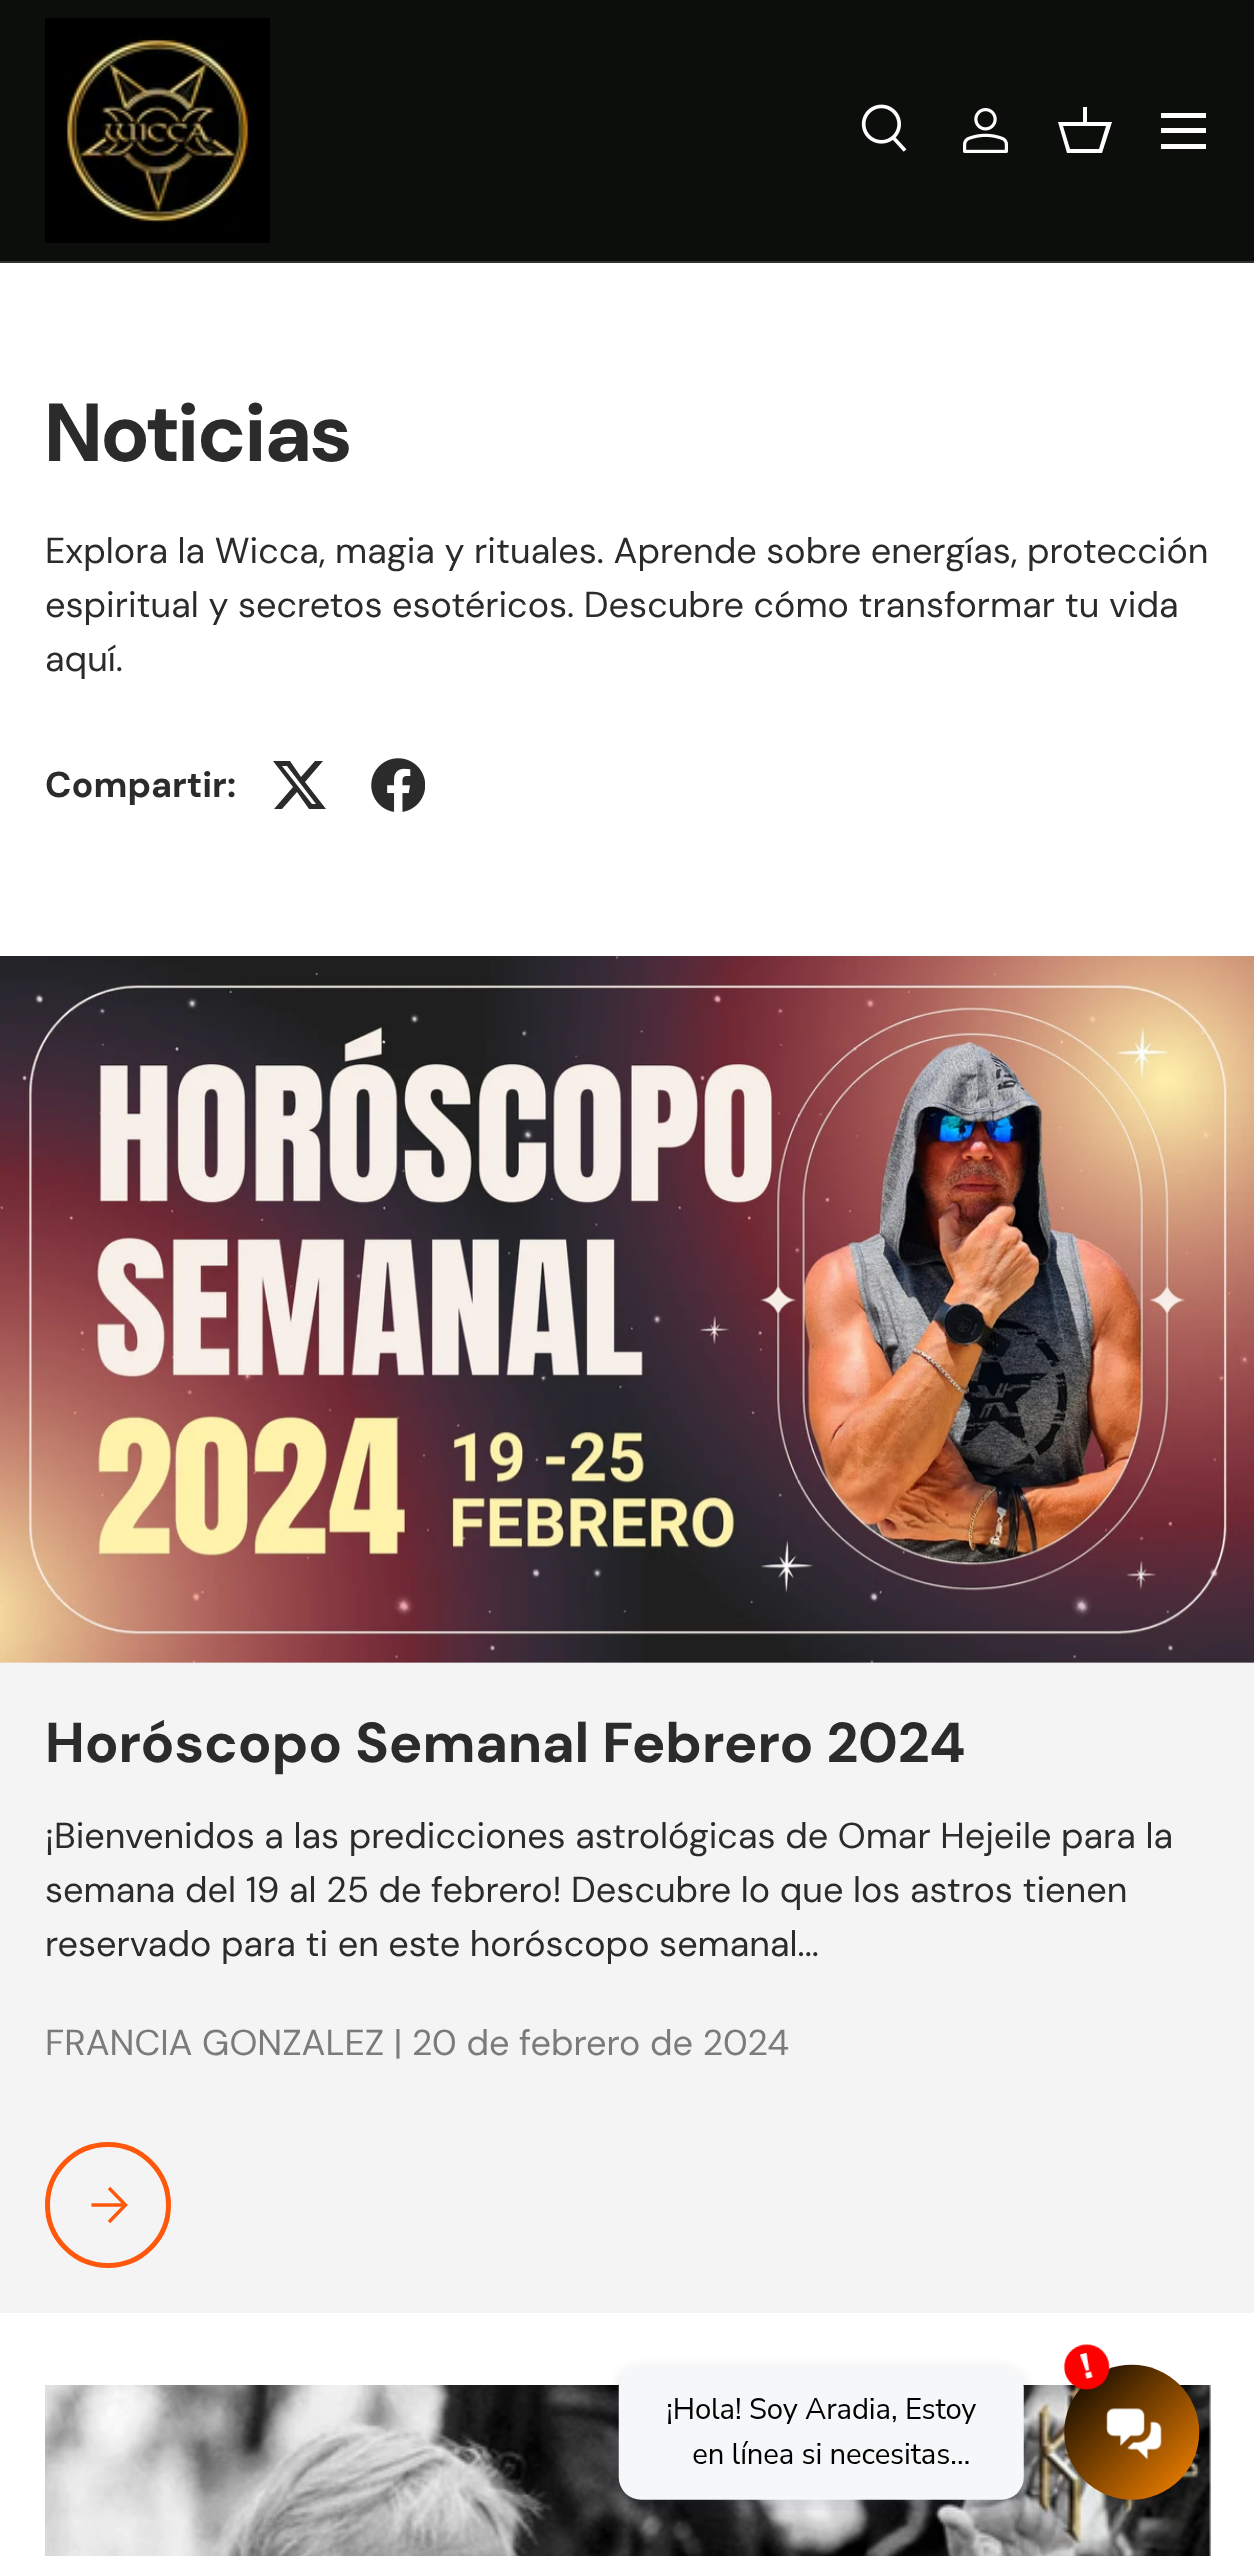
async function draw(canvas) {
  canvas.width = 1254;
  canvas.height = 2556;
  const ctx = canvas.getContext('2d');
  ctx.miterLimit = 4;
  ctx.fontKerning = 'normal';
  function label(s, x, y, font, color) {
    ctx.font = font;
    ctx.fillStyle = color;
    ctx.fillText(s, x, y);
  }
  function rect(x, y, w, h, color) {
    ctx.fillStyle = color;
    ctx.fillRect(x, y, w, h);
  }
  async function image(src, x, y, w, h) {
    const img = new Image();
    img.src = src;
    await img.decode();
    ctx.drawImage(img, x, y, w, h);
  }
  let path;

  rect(0, 0, 1254, 2556, '#fff');
  rect(0, 0, 1254, 261, '#0c0e0c');
  rect(0, 261, 1254, 2, '#303230');
  await image('assets/img1.png', 45, 18, 225, 225);
  await image('assets/img2.png', 861, 104, 46, 48);
  await image('assets/img3.png', 963, 108, 45, 45);
  ctx.fillStyle = '#fff';
  path = new Path2D('M1083 122V107H1087V122H1112L1102 153H1067L1058 122ZM1063 126L1070 149H1099L1106 126Z');
  ctx.fill(path);
  rect(1161, 113, 45, 5, '#fff');
  rect(1161, 144, 45, 5, '#fff');
  rect(1161, 128, 45, 5, '#fff');
  label('Noticias', 45, 461, 'bold 82px DM Sans', '#2a2b2a');
  label('Explora la Wicca, magia y rituales. Aprende sobre energías, protección', 45, 563, '36px DM Sans', '#2a2b2a');
  label('espiritual y secretos esotéricos. Descubre cómo transformar tu vida', 45, 617, '36px DM Sans', '#2a2b2a');
  label('aquí.', 45, 671, '36px DM Sans', '#2a2b2a');
  label('Compartir:', 45, 797, 'bold 36px "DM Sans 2"', '#2a2b2a');
  path = new Path2D('M315 761H323L305 782L326 809H309L297 792L282 809H274L293 787L273 761H290L301 777ZM312 804H316L287 766H282Z');
  ctx.fill(path);
  await image('assets/img4.png', 371, 758, 54, 54);
  rect(0, 1662, 1254, 651, '#f4f4f4');
  await image('assets/img5.png', 0, 956, 1254, 707);
  label('Horóscopo Semanal Febrero 2024', 45, 1762, 'bold 56.1px "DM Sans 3"', '#2a2b2a');
  label('¡Bienvenidos a las predicciones astrológicas de Omar Hejeile para la', 45, 1848, '36px DM Sans', '#2a2b2a');
  label('semana del 19 al 25 de febrero! Descubre lo que los astros tienen', 45, 1902, '36px DM Sans', '#2a2b2a');
  label('reservado para ti en este horóscopo semanal...', 45, 1956, '36px DM Sans', '#2a2b2a');
  label('FRANCIA GONZALEZ | 20 de febrero de 2024', 45, 2055, '36px DM Sans', '#7b7b7b');
  ctx.beginPath();
  ctx.arc(108, 2205, 60.5, 0, 2 * Math.PI);
  ctx.strokeStyle = '#ff580d';
  ctx.lineWidth = 5;
  ctx.stroke();
  path = new Path2D('M91.5 2205H124.5M109 2188L125.5 2205L109 2222');
  ctx.lineWidth = 3.4;
  ctx.stroke(path);
  await image('assets/img6.png', 45, 2385, 1166, 171);
  await image('assets/img7.png', 613, 2343, 587, 168);
}

draw(document.querySelector('canvas'));
